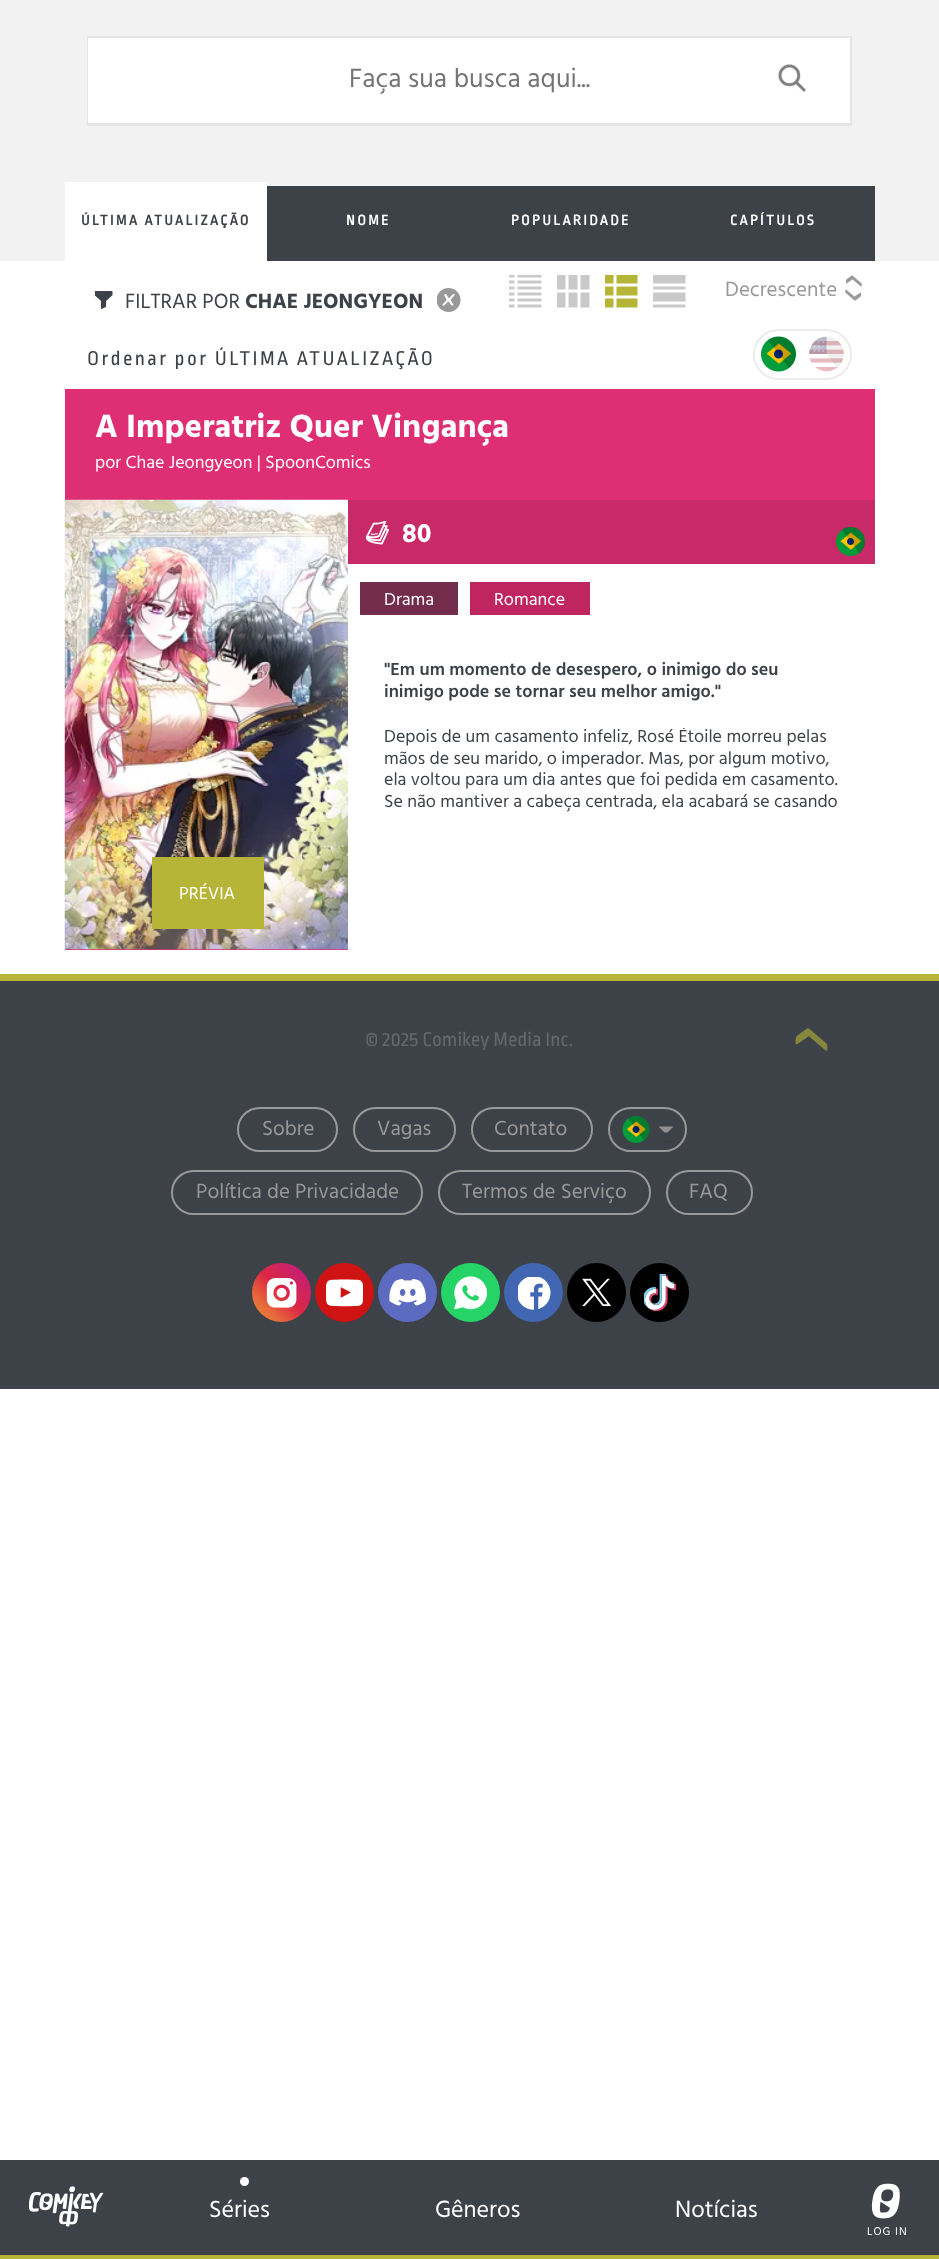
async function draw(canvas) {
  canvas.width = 939;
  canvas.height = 2259;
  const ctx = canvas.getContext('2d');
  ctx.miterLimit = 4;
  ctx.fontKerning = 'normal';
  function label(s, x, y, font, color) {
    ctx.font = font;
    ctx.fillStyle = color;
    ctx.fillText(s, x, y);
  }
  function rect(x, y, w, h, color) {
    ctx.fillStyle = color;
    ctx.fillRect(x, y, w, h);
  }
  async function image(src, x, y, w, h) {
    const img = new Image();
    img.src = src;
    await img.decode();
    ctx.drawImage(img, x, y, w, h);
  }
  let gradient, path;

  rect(0, 0, 939, 2259, '#fff');
  rect(0, 0, 939, 261, '#f2f2f2');
  rect(87, 36, 765, 90, '#fff');
  ctx.fillStyle = '#e6e6e6';
  path = new Path2D('M87 36H852L850 38H88Z');
  ctx.fill(path);
  ctx.fillStyle = '#0000001a';
  path = new Path2D('M852 36V126L850 123V38Z');
  ctx.fill(path);
  path = new Path2D('M852 126H87L88 123H850Z');
  ctx.fill(path);
  path = new Path2D('M87 126V36L88 38V123Z');
  ctx.fill(path);
  label('Faça sua busca aqui...', 349, 87, '27px Hind', '#757575');
  await image('assets/img1.png', 778, 64, 28, 28);
  rect(267, 186, 608, 75, '#3d4148');
  rect(65, 182, 202, 79, '#fff');
  ctx.letterSpacing = '2.4px';
  label('ÚLTIMA ATUALIZAÇÃO', 81, 225, 'bold 15px Ropa Sans', '#3d4148');
  label('NOME', 346, 225, 'bold 15px Ropa Sans', '#fff');
  label('POPULARIDADE', 511, 225, 'bold 15px Ropa Sans', '#fff');
  label('CAPÍTULOS', 730, 225, 'bold 15px Ropa Sans', '#fff');
  await image('assets/img2.png', 509, 275, 33, 33);
  await image('assets/img3.png', 557, 275, 33, 33);
  await image('assets/img4.png', 605, 275, 33, 33);
  await image('assets/img5.png', 653, 275, 33, 33);
  ctx.letterSpacing = '0px';
  label('Decrescente', 725, 296, '21px Hind', '#999');
  await image('assets/img6.png', 845, 275, 17, 26);
  await image('assets/img7.png', 95, 291, 18, 18);
  label('FILTRAR POR', 125, 308, '21px Hind', '#3d4148');
  label('CHAE JEONGYEON', 245, 308, 'bold 21px Hind', '#3d4148');
  await image('assets/img8.png', 437, 288, 24, 24);
  ctx.letterSpacing = '2.4px';
  label('Ordenar por ÚLTIMA ATUALIZAÇÃO', 87, 365, '21px Ropa Sans', '#3d4148');
  ctx.beginPath();
  ctx.roundRect(754, 330, 97, 49, 24.5);
  ctx.strokeStyle = '#ebebeb';
  ctx.lineWidth = 2;
  ctx.stroke();
  await image('assets/img9.png', 761, 336, 35, 36);
  await image('assets/img10.png', 809, 336, 35, 36);
  rect(65, 389, 810, 111, '#de2e74');
  ctx.letterSpacing = '0px';
  label('A Imperatriz Quer Vingança', 95, 437, 'bold 33px Hind', '#fff');
  label('por Chae Jeongyeon | SpoonComics', 95, 468, '18px Hind', '#fff');
  rect(348, 500, 527, 64, '#c82968');
  await image('assets/img11.png', 366, 521, 23, 24);
  label('80', 402, 542, 'bold 27px Hind', '#fff');
  await image('assets/img12.png', 836, 527, 30, 29);
  rect(360, 582, 98, 33, '#742c4d');
  label('Drama', 384, 605, '18px Hind', '#fff');
  rect(470, 582, 120, 33, '#bf2660');
  label('Romance', 494, 605, '18px Hind', '#fff');
  label('"Em um momento de desespero, o inimigo do seu', 384, 675, '600 18px Hind', '#3d4148');
  label('inimigo pode se tornar seu melhor amigo."', 384, 697, '600 18px Hind', '#3d4148');
  ctx.save();
  ctx.beginPath();
  ctx.rect(384, 728, 455, 85);
  ctx.clip();
  label('Depois de um casamento infeliz, Rosé Étoile morreu pelas', 384, 742, '18px Hind', '#3d4148');
  ctx.restore();
  label('mãos de seu marido, o imperador. Mas, por algum motivo,', 384, 764, '18px Hind', '#3d4148');
  label('ela voltou para um dia antes que foi pedida em casamento.', 384, 785, '18px Hind', '#3d4148');
  label('Se não mantiver a cabeça centrada, ela acabará se casando', 384, 807, '18px Hind', '#3d4148');
  rect(65, 949, 283, 1, '#de2e74');
  await image('assets/img13.png', 64, 499, 284, 451);
  rect(152, 857, 112, 72, '#b6b537');
  label('PRÉVIA', 179, 899, '18px Hind', '#fff');
  rect(0, 981, 939, 408, '#3d4148');
  rect(0, 974, 939, 7, '#b6b537');
  label('© 2025 Comikey Media Inc.', 365, 1046, '21px Ropa Sans', '#64676d');
  await image('assets/img14.png', 795, 1028, 33, 23);
  ctx.beginPath();
  ctx.roundRect(238, 1108, 99, 43, 21.5);
  ctx.strokeStyle = '#999';
  ctx.stroke();
  label('Sobre', 262, 1135, '21px Hind', '#999');
  ctx.beginPath();
  ctx.roundRect(354, 1108, 101, 43, 21.5);
  ctx.stroke();
  label('Vagas', 377, 1135, '21px Hind', '#999');
  ctx.beginPath();
  ctx.roundRect(472, 1108, 120, 43, 21.5);
  ctx.stroke();
  label('Contato', 494, 1135, '21px Hind', '#999');
  ctx.beginPath();
  ctx.roundRect(609, 1108, 77, 43, 21.5);
  ctx.stroke();
  await image('assets/img15.png', 622, 1116, 28, 27);
  ctx.save();
  ctx.beginPath();
  ctx.rect(665, 1133, 9, 9);
  ctx.clip();
  ctx.fillStyle = '#343a40';
  path = new Path2D('M672 1147.5L666 1141.5H678Z');
  ctx.fill(path);
  ctx.restore();
  ctx.fillStyle = '#909090';
  path = new Path2D('M658.5 1126.5H673.5L667.5 1132.5H664.5Z');
  ctx.fill(path);
  ctx.beginPath();
  ctx.roundRect(172, 1171, 250, 43, 21.5);
  ctx.stroke();
  label('Política de Privacidade', 196, 1198, '21px Hind', '#999');
  ctx.beginPath();
  ctx.roundRect(439, 1171, 211, 43, 21.5);
  ctx.stroke();
  label('Termos de Serviço', 462, 1198, '21px Hind', '#999');
  ctx.beginPath();
  ctx.roundRect(667, 1171, 85, 43, 21.5);
  ctx.stroke();
  label('FAQ', 689, 1198, '21px Hind', '#999');
  gradient = ctx.createLinearGradient(252, 1322, 311, 1263);
  gradient.addColorStop(0, '#f09433');
  gradient.addColorStop(0.25, '#e6683c');
  gradient.addColorStop(0.5, '#dc2743');
  gradient.addColorStop(0.75, '#cc2366');
  gradient.addColorStop(1, '#bc1888');
  ctx.fillStyle = gradient;
  ctx.beginPath();
  ctx.arc(281.5, 1292.5, 29.5, 0, 2 * Math.PI);
  ctx.fill();
  await image('assets/img16.png', 266, 1278, 31, 30);
  ctx.fillStyle = '#ce1312';
  ctx.beginPath();
  ctx.arc(344.5, 1292.5, 29.5, 0, 2 * Math.PI);
  ctx.fill();
  await image('assets/img17.png', 326, 1279, 37, 28);
  ctx.fillStyle = '#5c6bc0';
  ctx.beginPath();
  ctx.arc(407.5, 1292.5, 29.5, 0, 2 * Math.PI);
  ctx.fill();
  await image('assets/img18.png', 389, 1278, 37, 28);
  ctx.fillStyle = '#25d366';
  ctx.beginPath();
  ctx.arc(470.5, 1292.5, 29.5, 0, 2 * Math.PI);
  ctx.fill();
  await image('assets/img19.png', 454, 1276, 33, 34);
  ctx.fillStyle = '#4267b2';
  ctx.beginPath();
  ctx.arc(533.5, 1292.5, 29.5, 0, 2 * Math.PI);
  ctx.fill();
  await image('assets/img20.png', 518, 1277, 33, 33);
  ctx.fillStyle = '#000';
  ctx.beginPath();
  ctx.arc(596.5, 1292.5, 29.5, 0, 2 * Math.PI);
  ctx.fill();
  await image('assets/img21.png', 582, 1278, 29, 29);
  ctx.fillStyle = '#010101';
  ctx.beginPath();
  ctx.arc(659.5, 1292.5, 29.5, 0, 2 * Math.PI);
  ctx.fill();
  await image('assets/img22.png', 644, 1274, 33, 37);
  rect(0, 2255, 939, 4, '#b6b537');
  rect(0, 2160, 939, 95, '#3d4148');
  ctx.fillStyle = '#fff';
  ctx.beginPath();
  ctx.arc(244.5, 2181.5, 4.5, 0, 2 * Math.PI);
  ctx.fill();
  label('Séries', 209, 2217, '24px Hind', '#fff');
  label('Gêneros', 435, 2217, '24px Hind', '#fff');
  label('Notícias', 675, 2217, '24px Hind', '#fff');
  await image('assets/img23.png', 29, 2186, 75, 41);
  await image('assets/img24.png', 871, 2183, 29, 36);
  ctx.letterSpacing = '1px';
  label('LOG IN', 867, 2235, '11.5px Hind', '#fff');
}

draw(document.querySelector('canvas'));
